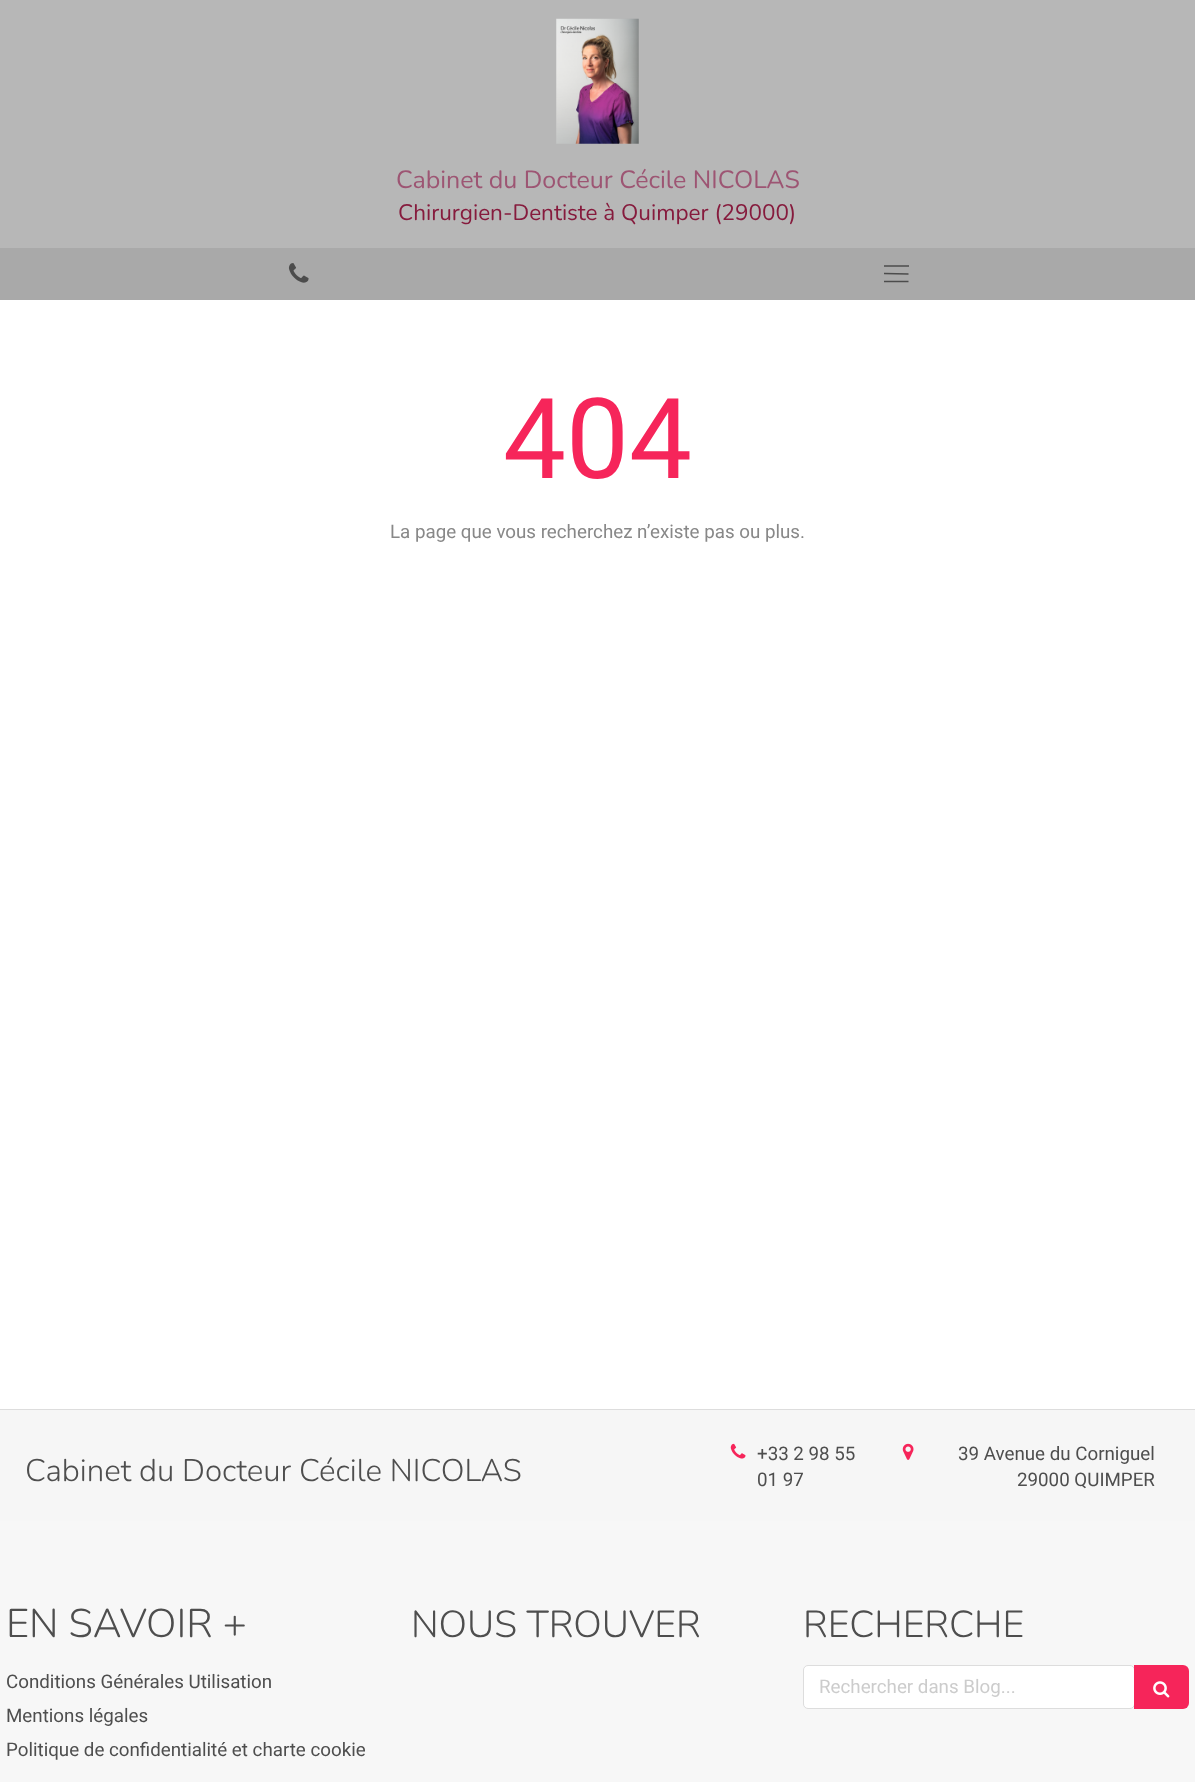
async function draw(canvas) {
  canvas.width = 1195;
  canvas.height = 1782;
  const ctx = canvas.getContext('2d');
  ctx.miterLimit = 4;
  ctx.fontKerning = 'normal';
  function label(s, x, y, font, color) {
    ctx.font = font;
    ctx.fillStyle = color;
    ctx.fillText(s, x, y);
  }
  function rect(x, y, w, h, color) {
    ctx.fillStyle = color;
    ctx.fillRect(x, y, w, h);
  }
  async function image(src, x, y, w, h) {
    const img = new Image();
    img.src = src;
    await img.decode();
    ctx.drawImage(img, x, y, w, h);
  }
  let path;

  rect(0, 0, 1195, 1782, '#b7b7b7');
  await image('assets/img1.png', 556, 18, 83, 126);
  label('Cabinet du Docteur Cécile NICOLAS', 396, 188, '25px Nunito', '#9d5573');
  label('Chirurgien-Dentiste à Quimper (29000)', 398, 220, '22.5px Nunito', '#861b3d');
  rect(0, 248, 1195, 52, '#a9a9a9');
  await image('assets/img2.png', 288, 263, 21, 20);
  rect(884, 265, 25, 2, '#636363');
  path = new Path2D('M884 273.5L908.5 274');
  ctx.strokeStyle = '#4c4c4c';
  ctx.lineWidth = 1.5;
  ctx.stroke(path);
  path = new Path2D('M884 281.5H908.5');
  ctx.stroke(path);
  rect(0, 300, 1195, 1109, '#fff');
  label('404', 503, 478, '112px Roboto', '#f6255a');
  label('La page que vous recherchez n’existe pas ou plus.', 390, 538, '18.75px Roboto', '#888');
  rect(0, 1409, 1195, 1, '#ddd');
  rect(0, 1410, 1195, 111, '#f6f6f6');
  label('Cabinet du Docteur Cécile NICOLAS', 25, 1481, '300 31.25px Nunito', '#4e4e4e');
  await image('assets/img3.png', 730, 1443, 16, 16);
  label('+33 2 98 55', 757, 1460, '18.75px Roboto', '#4e4e4e');
  label('01 97', 757, 1486, '18.75px Roboto', '#4e4e4e');
  await image('assets/img4.png', 902, 1443, 12, 17);
  label('39 Avenue du Corniguel', 958, 1460, '18.75px Roboto', '#4e4e4e');
  label('29000 QUIMPER', 1017, 1486, '18.75px Roboto', '#4e4e4e');
  rect(0, 1521, 1195, 261, '#f7f7f7');
  label('EN SAVOIR +', 6, 1637, '300 40px Nunito', '#4e4e4e');
  label('Conditions Générales Utilisation', 6, 1688, '18.75px Roboto', '#4e4e4e');
  label('Mentions légales', 6, 1722, '18.75px Roboto', '#4e4e4e');
  label('Politique de confidentialité et charte cookie', 6, 1756, '18.75px Roboto', '#4e4e4e');
  label('NOUS TROUVER', 411, 1637, '300 37.5px Nunito', '#4e4e4e');
  label('RECHERCHE', 803, 1637, '300 37.5px Nunito', '#4e4e4e');
  ctx.fillStyle = '#fff';
  ctx.beginPath();
  ctx.roundRect(803.5, 1665.5, 331, 43, 4.5);
  ctx.fill();
  ctx.strokeStyle = '#ddd';
  ctx.lineWidth = 1;
  ctx.stroke();
  label('Rechercher dans Blog...', 819, 1693, '18.75px Roboto', '#ccc');
  ctx.fillStyle = '#f6255a';
  ctx.beginPath();
  ctx.roundRect(1134, 1665, 55, 44, [0, 6, 6, 0]);
  ctx.fill();
  await image('assets/img5.png', 1153, 1681, 17, 17);
}

draw(document.querySelector('canvas'));
